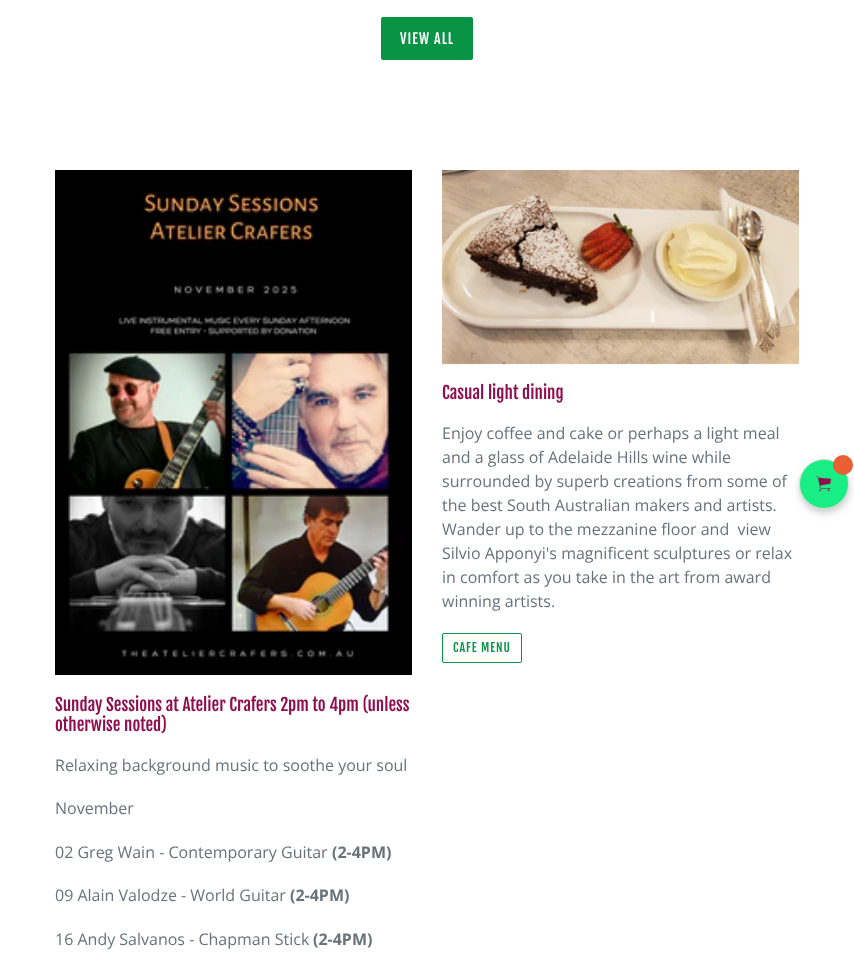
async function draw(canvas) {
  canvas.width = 854;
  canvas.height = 957;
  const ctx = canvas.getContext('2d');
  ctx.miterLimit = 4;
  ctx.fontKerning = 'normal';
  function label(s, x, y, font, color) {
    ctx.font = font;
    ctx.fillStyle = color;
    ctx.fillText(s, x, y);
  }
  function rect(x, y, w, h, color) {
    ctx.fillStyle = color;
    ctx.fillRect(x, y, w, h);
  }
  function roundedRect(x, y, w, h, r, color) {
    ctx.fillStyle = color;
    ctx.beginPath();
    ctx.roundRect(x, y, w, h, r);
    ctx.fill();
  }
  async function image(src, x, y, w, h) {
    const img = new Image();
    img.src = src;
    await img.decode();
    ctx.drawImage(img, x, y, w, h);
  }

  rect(0, 0, 854, 957, '#fff');
  roundedRect(381, 17, 92, 43, 2, '#089345');
  ctx.letterSpacing = '1px';
  label('VIEW ALL', 400, 44, '14px Fjalla One', '#fff');
  await image('assets/img1.png', 442, 170, 357, 195);
  ctx.letterSpacing = '0px';
  label('Casual light dining', 442, 399, '17px Fjalla One', '#900d4e');
  label('Enjoy coffee and cake or perhaps a light meal', 442, 439, '16px Open Sans', '#69727b');
  label('and a glass of Adelaide Hills wine while', 442, 463, '16px Open Sans', '#69727b');
  label('surrounded by superb creations from some of', 442, 487, '16px Open Sans', '#69727b');
  label('the best South Australian makers and artists.', 442, 511, '16px Open Sans', '#69727b');
  label('Wander up to the mezzanine floor and  view', 442, 535, '16px Open Sans', '#69727b');
  label('Silvio Apponyi\'s magnificent sculptures or relax', 442, 559, '16px Open Sans', '#69727b');
  label('in comfort as you take in the art from award', 442, 583, '16px Open Sans', '#69727b');
  label('winning artists.', 442, 607, '16px Open Sans', '#69727b');
  ctx.beginPath();
  ctx.roundRect(442.5, 633.5, 79, 29, 1.5);
  ctx.strokeStyle = '#089345';
  ctx.stroke();
  ctx.letterSpacing = '1px';
  label('CAFE MENU', 453, 652, '12px Fjalla One', '#089345');
  await image('assets/img2.png', 55, 170, 357, 505);
  ctx.letterSpacing = '0px';
  label('Sunday Sessions at Atelier Crafers 2pm to 4pm (unless', 55, 711, '17px Fjalla One', '#900d4e');
  label('otherwise noted)', 55, 731, '17px Fjalla One', '#900d4e');
  label('Relaxing background music to soothe your soul', 55, 771, '16px Open Sans', '#69727b');
  label('November', 55, 814, '16px Open Sans', '#69727b');
  label('02 Greg Wain - Contemporary Guitar', 55, 858, '16px Open Sans', '#69727b');
  label('(2-4PM)', 332, 858, 'bold 16px Open Sans', '#69727b');
  label('09 Alain Valodze - World Guitar', 55, 901, '16px Open Sans', '#69727b');
  label('(2-4PM)', 290, 901, 'bold 16px Open Sans', '#69727b');
  label('16 Andy Salvanos - Chapman Stick', 55, 945, '16px Open Sans', '#69727b');
  label('(2-4PM)', 313, 945, 'bold 16px Open Sans', '#69727b');
  ctx.fillStyle = '#00000014';
  ctx.filter = 'blur(2px)';
  ctx.beginPath();
  ctx.roundRect(799, 463, 50, 50, 25);
  ctx.fill();
  ctx.filter = 'none';
  ctx.fillStyle = '#0000001f';
  ctx.filter = 'blur(5px)';
  ctx.beginPath();
  ctx.roundRect(800, 463, 50, 50, 25);
  ctx.fill();
  ctx.filter = 'none';
  ctx.fillStyle = '#18ee83';
  ctx.beginPath();
  ctx.arc(824, 484, 24.5, 0, 2 * Math.PI);
  ctx.fill();
  ctx.strokeStyle = '#ddd';
  ctx.stroke();
  ctx.fillStyle = '#e75f33';
  ctx.beginPath();
  ctx.arc(843, 465, 10, 0, 2 * Math.PI);
  ctx.fill();
  await image('assets/img3.png', 816, 476, 15, 15);
}

draw(document.querySelector('canvas'));
